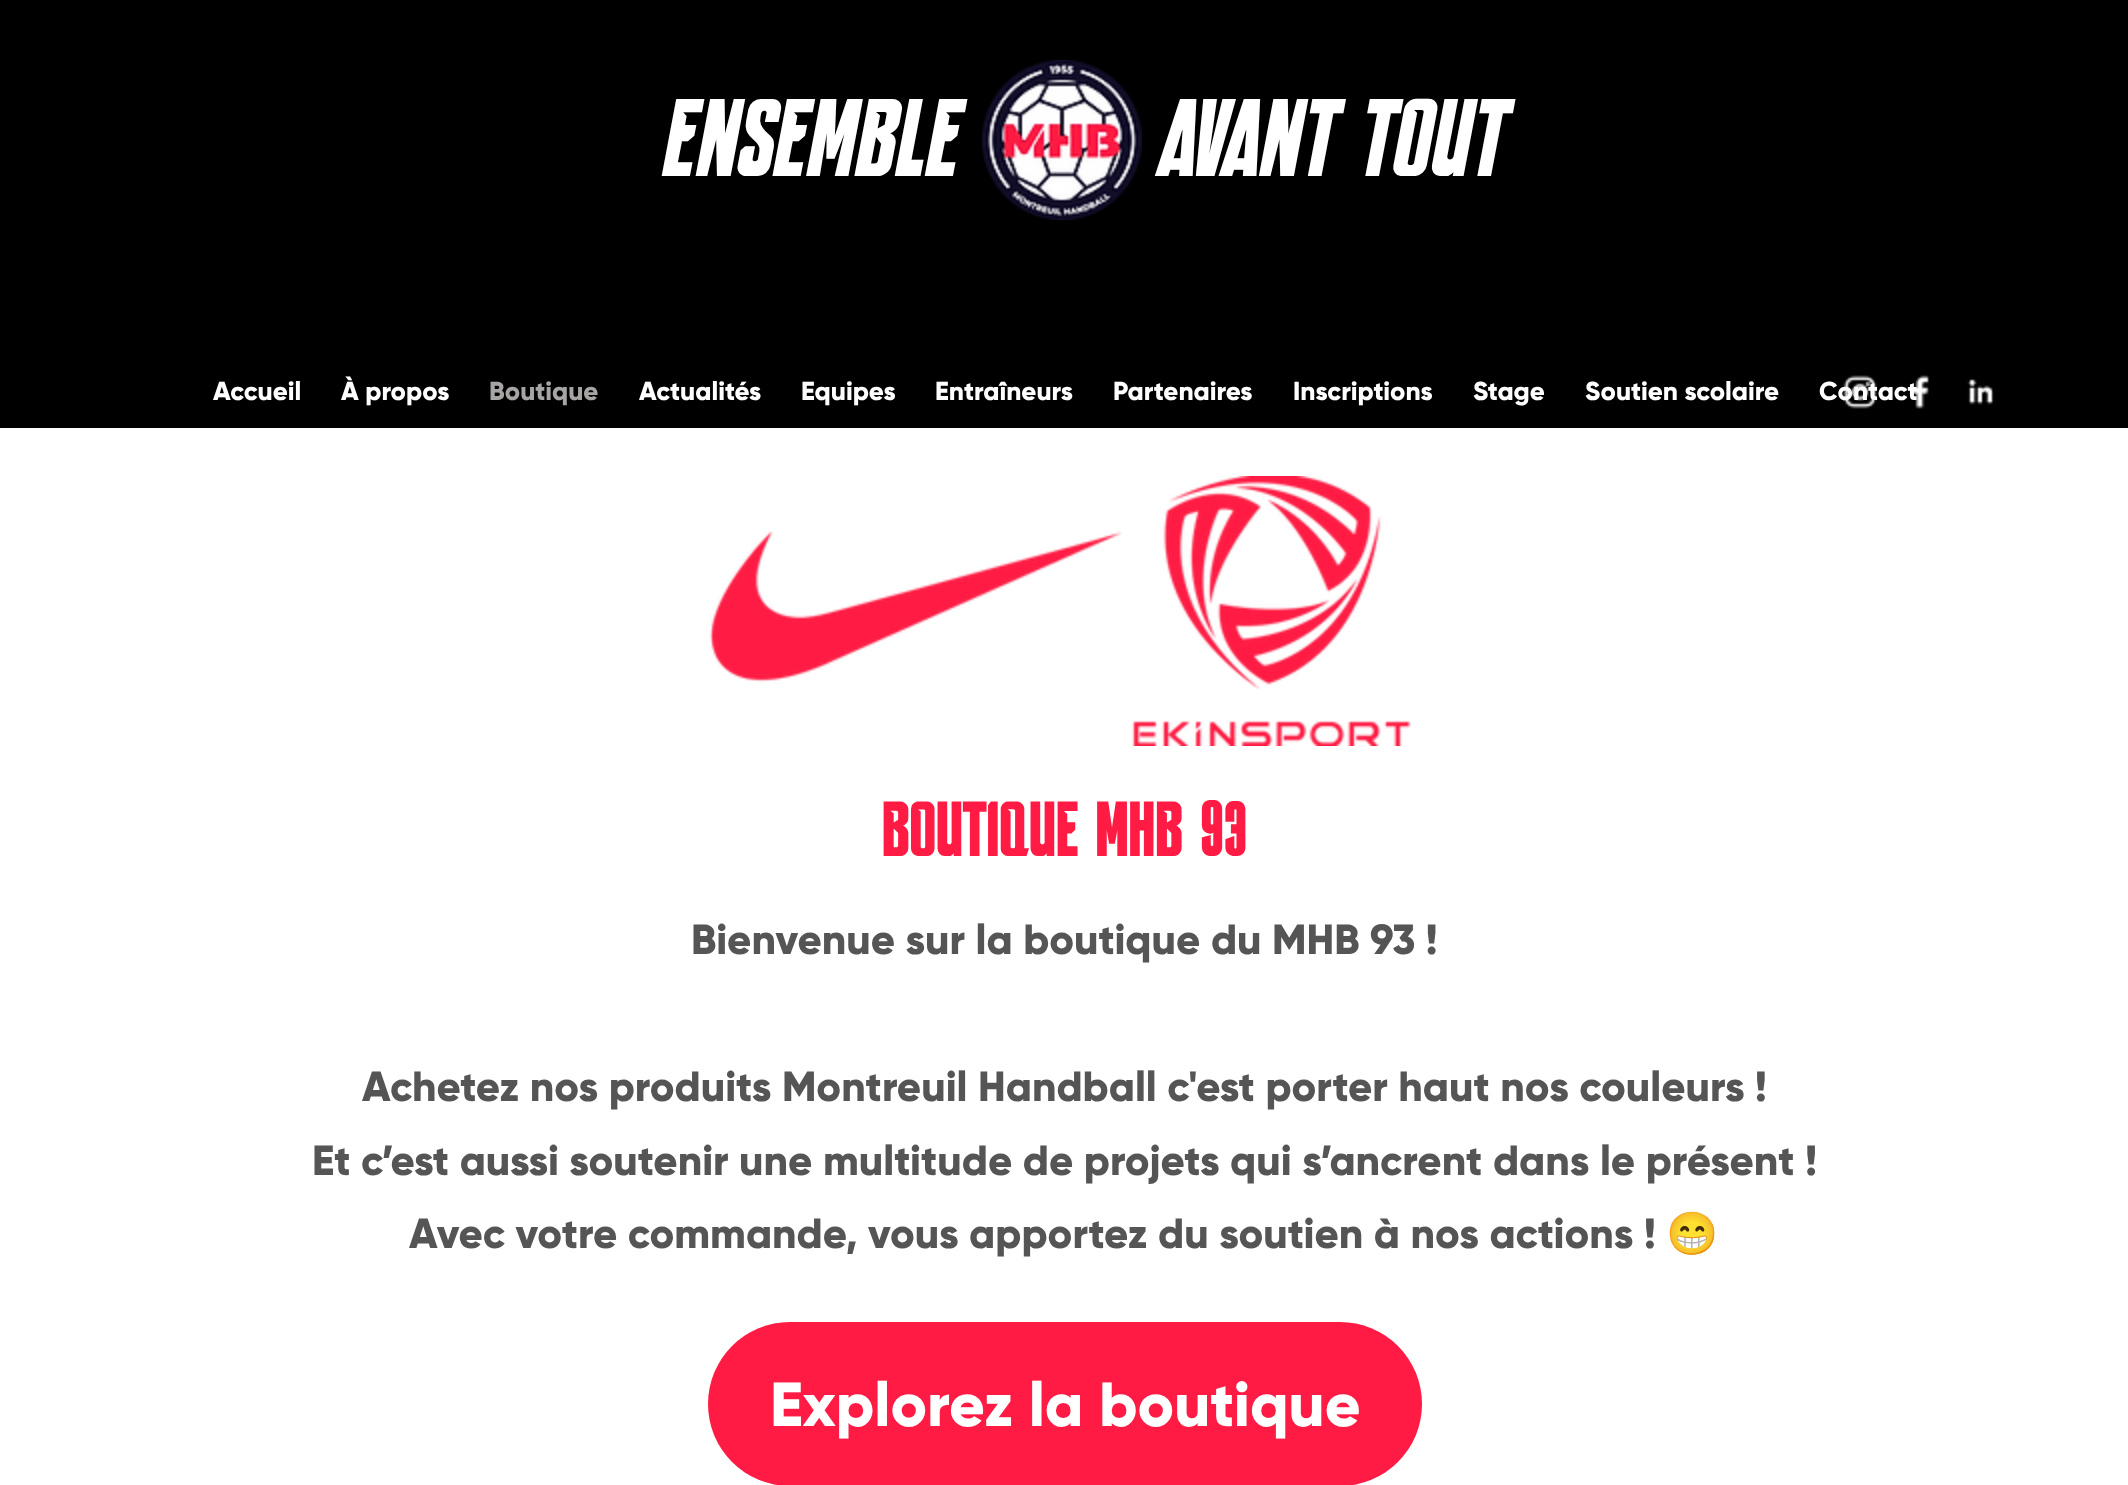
async function draw(canvas) {
  canvas.width = 2128;
  canvas.height = 1485;
  const ctx = canvas.getContext('2d');
  ctx.miterLimit = 4;
  ctx.fontKerning = 'normal';
  function label(s, x, y, font, color) {
    ctx.font = font;
    ctx.fillStyle = color;
    ctx.fillText(s, x, y);
  }
  function rect(x, y, w, h, color) {
    ctx.fillStyle = color;
    ctx.fillRect(x, y, w, h);
  }
  function roundedRect(x, y, w, h, r, color) {
    ctx.fillStyle = color;
    ctx.beginPath();
    ctx.roundRect(x, y, w, h, r);
    ctx.fill();
  }
  async function image(src, x, y, w, h) {
    const img = new Image();
    img.src = src;
    await img.decode();
    ctx.drawImage(img, x, y, w, h);
  }

  rect(0, 0, 2128, 1485, '#fff');
  rect(0, 0, 2128, 428, '#000');
  await image('assets/img1.png', 982, 60, 160, 160);
  label('ENSEMBLE         aVANT TOUT', 666, 176, 'italic 110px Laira', '#fff');
  label('Accueil', 213, 400, '800 26px Gilroy', '#fff');
  label('À propos', 341, 400, '800 26px Gilroy', '#fff');
  label('Boutique', 489, 400, '800 26px Gilroy', '#a7a4a4');
  label('Actualités', 639, 400, '800 26px Gilroy', '#fff');
  label('Equipes', 801, 400, '800 26px Gilroy', '#fff');
  label('Entraîneurs', 935, 400, '800 26px Gilroy', '#fff');
  label('Partenaires', 1113, 400, '800 26px Gilroy', '#fff');
  label('Inscriptions', 1293, 400, '800 26px Gilroy', '#fff');
  label('Stage', 1473, 400, '800 26px Gilroy', '#fff');
  label('Soutien scolaire', 1585, 400, '800 26px Gilroy', '#fff');
  label('Contact', 1819, 400, '800 26px Gilroy', '#fff');
  await image('assets/img2.png', 1843, 375, 34, 34);
  await image('assets/img3.png', 1913, 375, 17, 34);
  await image('assets/img4.png', 1967, 379, 27, 26);
  await image('assets/img5.png', 709, 476, 702, 270);
  label('Boutique MHB 93', 882, 856, '74px Laira', '#ff1b43');
  label('Bienvenue sur la boutique du MHB 93 !', 691, 954, '800 42px Gilroy', '#555');
  label('Achetez nos produits Montreuil Handball c\'est porter haut nos couleurs !', 362, 1101, '800 42px Gilroy', '#555');
  label('Et c’est aussi soutenir une multitude de projets qui s’ancrent dans le présent !', 312, 1175, '800 42px Gilroy', '#555');
  label('Avec votre commande, vous apportez du soutien à nos actions !', 409, 1248, '800 42px Gilroy', '#555');
  label('😁', 1666, 1248, '42px Noto Color Emoji', '#555');
  roundedRect(708, 1322, 714, 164, 82, '#ff1b43');
  label('Explorez la boutique', 770, 1426, '800 62px Gilroy', '#fff');
}

draw(document.querySelector('canvas'));
